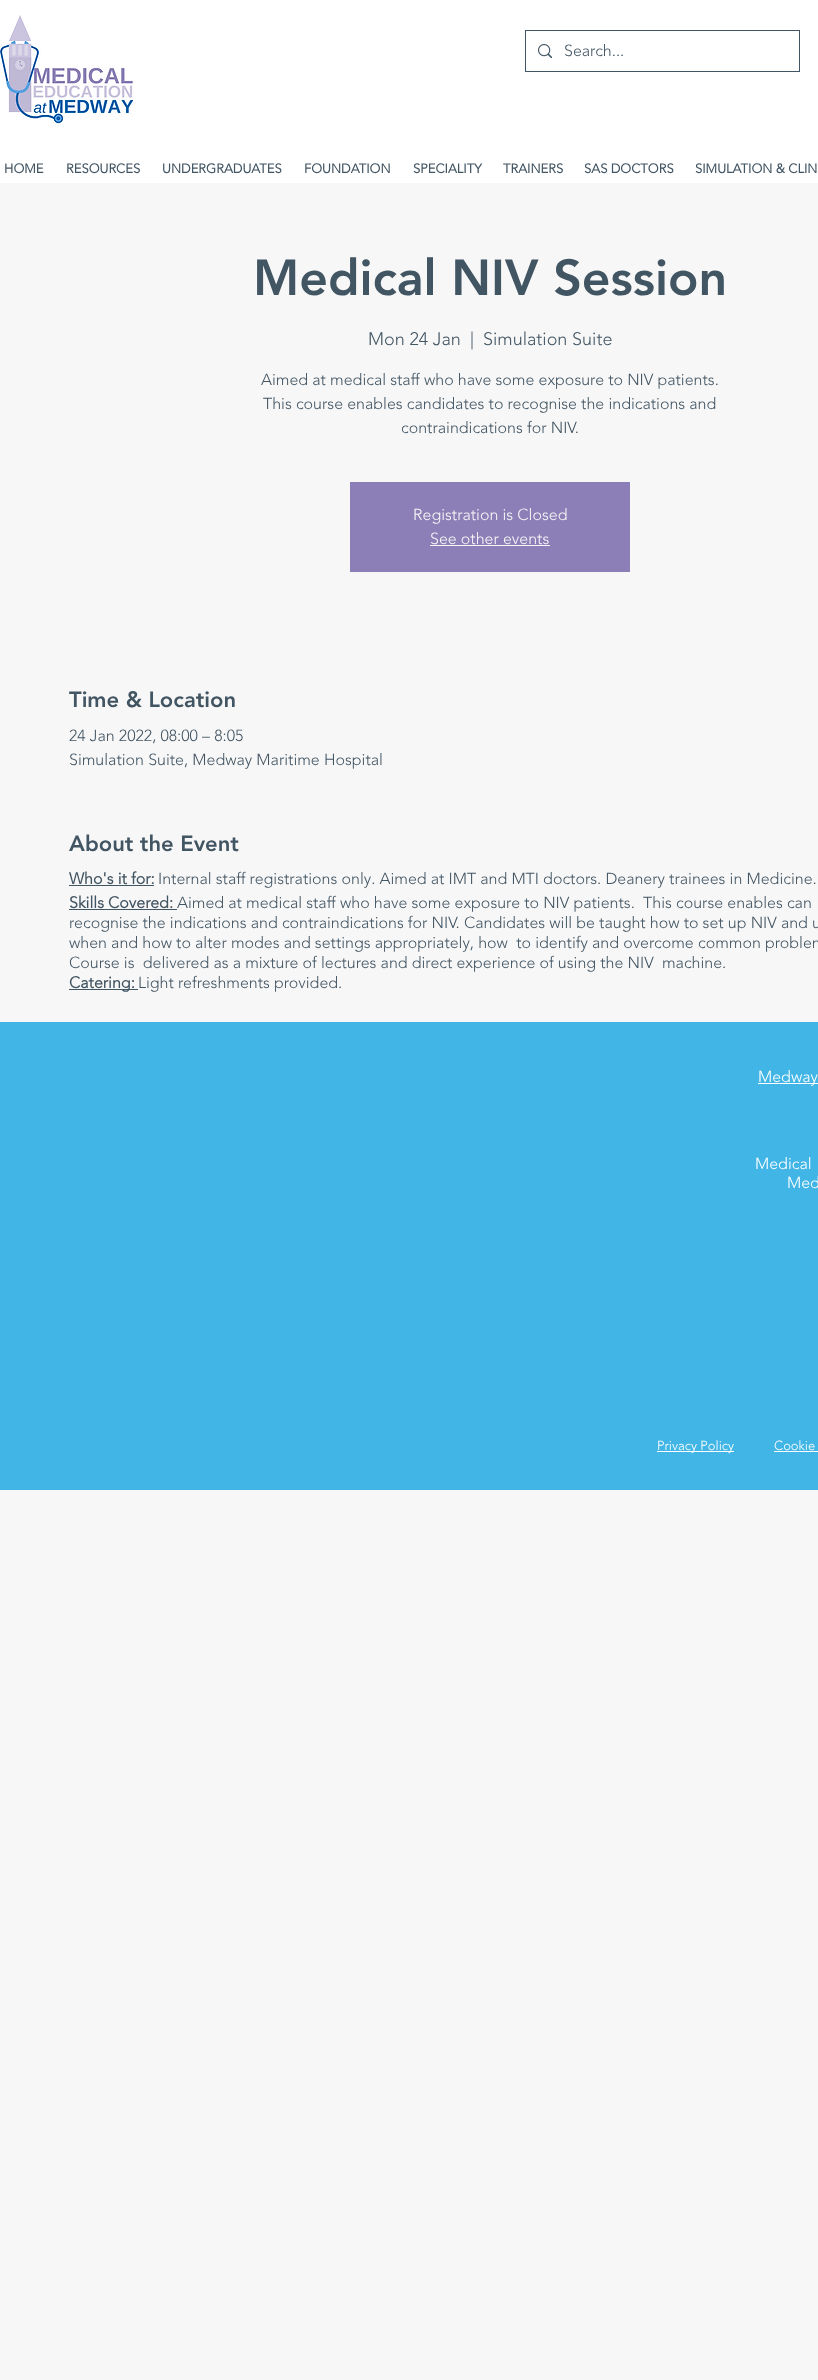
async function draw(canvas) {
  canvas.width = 818;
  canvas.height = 2380;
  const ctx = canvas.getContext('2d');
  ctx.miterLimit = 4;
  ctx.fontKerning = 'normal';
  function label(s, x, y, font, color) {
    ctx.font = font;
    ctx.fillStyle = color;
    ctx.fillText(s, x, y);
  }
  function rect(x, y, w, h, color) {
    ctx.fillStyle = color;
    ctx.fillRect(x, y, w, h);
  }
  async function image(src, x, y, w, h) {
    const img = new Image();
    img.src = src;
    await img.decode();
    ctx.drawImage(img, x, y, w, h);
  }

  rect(0, 0, 818, 2380, '#f7f7f7');
  rect(0, 0, 818, 183, '#fff');
  await image('assets/img1.png', 0, 15, 134, 109);
  ctx.strokeStyle = '#425563';
  ctx.strokeRect(525.5, 30.5, 274, 41);
  await image('assets/img2.png', 538, 44, 14, 14);
  label('Search...', 564, 56, '300 16px "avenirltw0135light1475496"', '#425563');
  label('HOME', 4, 173, 'bold 13px "avenirltw0135light1475496"', '#425563');
  label('RESOURCES', 66, 173, 'bold 13px "avenirltw0135light1475496"', '#425563');
  label('UNDERGRADUATES', 162, 173, 'bold 13px "avenirltw0135light1475496"', '#425563');
  label('FOUNDATION', 304, 173, 'bold 13px "avenirltw0135light1475496"', '#425563');
  label('SPECIALITY', 413, 173, 'bold 13px "avenirltw0135light1475496"', '#425563');
  label('TRAINERS', 503, 173, 'bold 13px "avenirltw0135light1475496"', '#425563');
  label('SAS DOCTORS', 584, 173, 'bold 13px "avenirltw0135light1475496"', '#425563');
  label('SIMULATION & CLIN', 695, 173, 'bold 13px "avenirltw0135light1475496"', '#425563');
  label('Medical NIV Session', 253, 295, '900 50px "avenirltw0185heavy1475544"', '#425563');
  label('Mon 24 Jan', 368, 345, '300 18px "avenirltw0135light1475496"', '#425563');
  label('|', 470, 345, '300 18px "avenirltw0135light1475496"', '#425563');
  label('Simulation Suite', 483, 345, '300 18px "avenirltw0135light1475496"', '#425563');
  label('Aimed at medical staff who have some exposure to NIV patients.', 261, 385, '300 16px "avenirltw0135light1475496"', '#425563');
  label('This course enables candidates to recognise the indications and', 263, 409, '300 16px "avenirltw0135light1475496"', '#425563');
  label('contraindications for NIV.', 401, 433, '300 16px "avenirltw0135light1475496"', '#425563');
  rect(350, 482, 280, 90, '#8c7fb7');
  label('Registration is Closed', 413, 520, '300 16px "avenirltw0135light1475496"', '#f7f7f7');
  label('See other events', 430, 544, '300 16px "avenirltw0135light1475496"', '#f7f7f7');
  rect(430, 545, 120, 1, '#f7f7f7');
  label('Time & Location', 69, 707, '900 22px "avenirltw0185heavy1475544"', '#425563');
  label('24 Jan 2022, 08:00 – 8:05', 69, 741, '300 16px "avenirltw0135light1475496"', '#425563');
  label('Simulation Suite, Medway Maritime Hospital', 69, 765, '300 16px "avenirltw0135light1475496"', '#425563');
  label('About the Event', 69, 851, '900 22px "avenirltw0185heavy1475544"', '#425563');
  label('Who\'s it for:', 69, 884, 'bold 16px "avenirltw0135light1475496"', '#425563');
  rect(69, 885, 85, 1, '#425563');
  label('Internal staff registrations only. Aimed at IMT and MTI doctors. Deanery trainees in Medicine.', 158, 884, '300 16px "avenirltw0135light1475496"', '#425563');
  label('Skills Covered:', 69, 908, 'bold 16px "avenirltw0135light1475496"', '#425563');
  rect(69, 909, 108, 1, '#425563');
  label('Aimed at medical staff who have some exposure to NIV patients.  This course enables can', 177, 908, '300 16px "avenirltw0135light1475496"', '#425563');
  label('recognise the indications and contraindications for NIV. Candidates will be taught how to set up NIV and u', 69, 928, '300 16px "avenirltw0135light1475496"', '#425563');
  label('when and how to alter modes and settings appropriately, how  to identify and overcome common problem', 69, 948, '300 16px "avenirltw0135light1475496"', '#425563');
  label('Course is  delivered as a mixture of lectures and direct experience of using the NIV  machine.', 69, 968, '300 16px "avenirltw0135light1475496"', '#425563');
  rect(69, 989, 69, 1, '#425563');
  label('Catering:', 69, 988, 'bold 16px "avenirltw0135light1475496"', '#425563');
  label('Light refreshments provided.', 138, 988, '300 16px "avenirltw0135light1475496"', '#425563');
  rect(0, 1022, 818, 468, '#41b6e6');
  rect(758, 1083, 60, 1, '#fff');
  label('Medway', 758, 1082, '300 16px "avenirltw0135light1475496"', '#fff');
  label('Medical', 755, 1169, '300 16px "avenirltw0135light1475496"', '#fff');
  label('Med', 787, 1188, '300 16px "avenirltw0135light1475496"', '#fff');
  rect(657, 1451, 77, 1, '#fff');
  label('Privacy Policy', 657, 1450, '300 13px "avenirltw0135light1475496"', '#fff');
  label('Cookie', 774, 1450, '300 13px "avenirltw0135light1475496"', '#fff');
  rect(774, 1451, 44, 1, '#fff');
}

draw(document.querySelector('canvas'));
